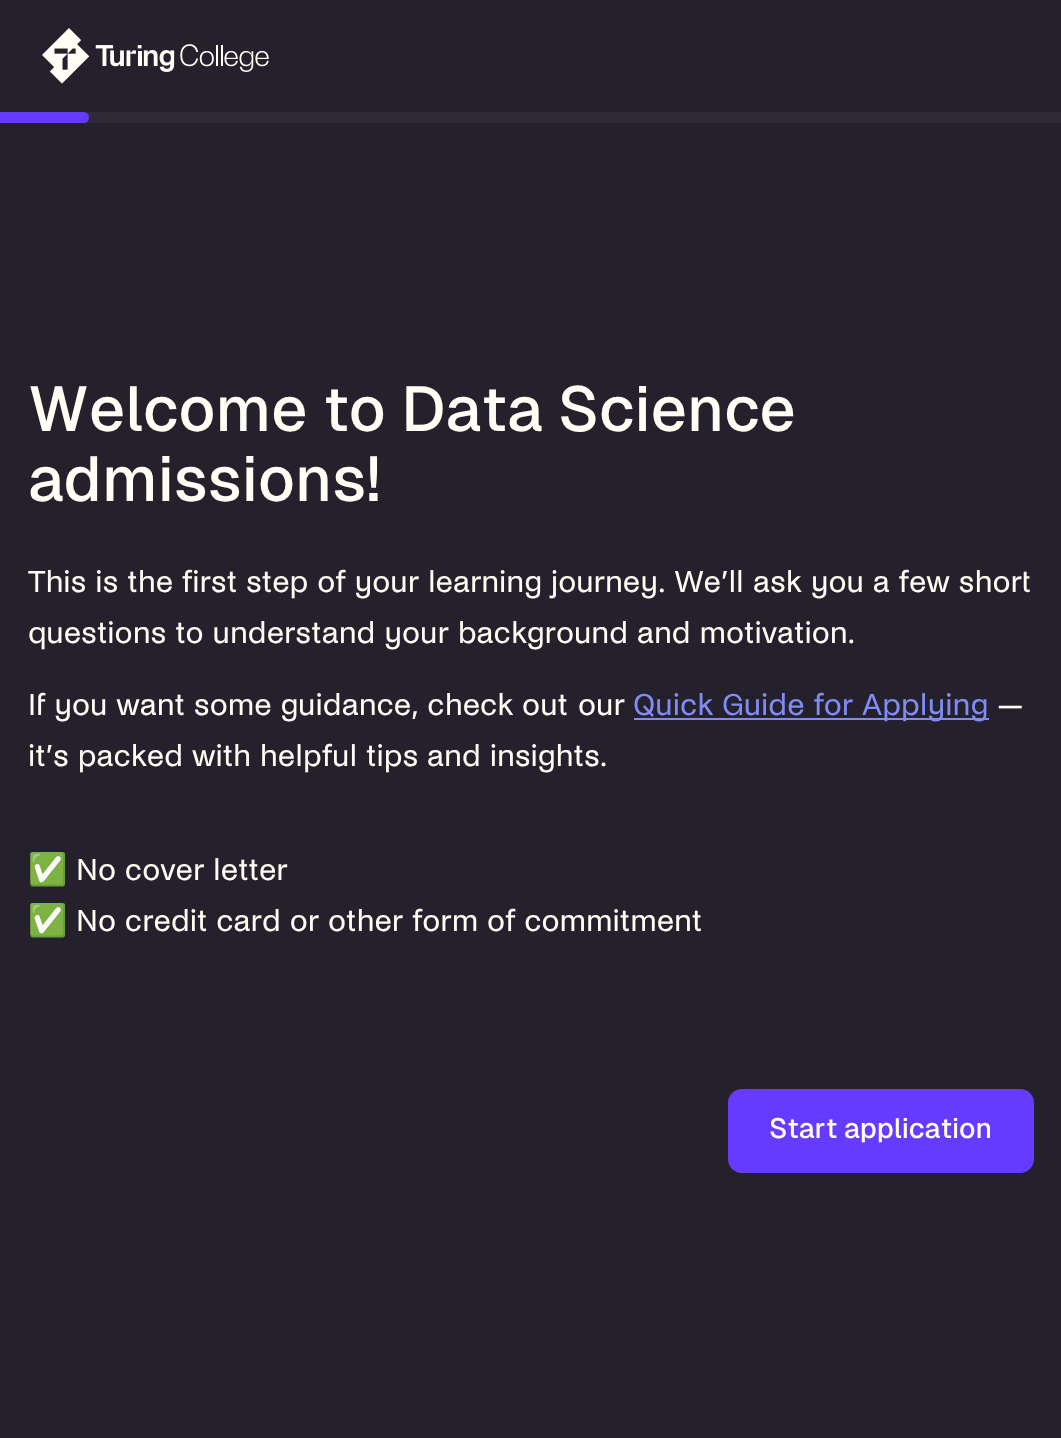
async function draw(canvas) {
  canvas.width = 1061;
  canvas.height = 1438;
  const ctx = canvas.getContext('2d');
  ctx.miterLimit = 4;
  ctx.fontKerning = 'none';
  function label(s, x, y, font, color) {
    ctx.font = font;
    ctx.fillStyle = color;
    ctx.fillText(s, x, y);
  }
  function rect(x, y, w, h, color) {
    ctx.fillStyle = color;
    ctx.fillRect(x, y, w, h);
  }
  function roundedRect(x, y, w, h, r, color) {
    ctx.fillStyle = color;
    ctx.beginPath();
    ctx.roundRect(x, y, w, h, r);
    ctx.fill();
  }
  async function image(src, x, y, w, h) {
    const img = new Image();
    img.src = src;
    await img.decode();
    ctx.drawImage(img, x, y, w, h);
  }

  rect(0, 0, 1061, 1438, '#25212c');
  await image('assets/img1.png', 42, 28, 227, 56);
  rect(83, 112, 978, 11, '#302a38');
  ctx.fillStyle = '#673aff';
  ctx.beginPath();
  ctx.roundRect(0, 112, 89, 11, [0, 5.5, 5.5, 0]);
  ctx.fill();
  label('Welcome to Data Science', 28, 431, '500 63px Geist', '#fffef5');
  label('admissions!', 28, 501, '500 63px Geist', '#fffef5');
  label('This is the first step of your learning', 28, 592, '31.5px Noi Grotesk', '#fffef5');
  label('journey. We’ll', 551, 592, '31.5px Noi Grotesk', '#fffef5');
  label('ask you a few short', 753, 592, '31.5px Noi Grotesk', '#fffef5');
  label('questions to understand your background and motivation.', 28, 643, '31.5px Noi Grotesk', '#fffef5');
  label('If you want some guidance, check out', 28, 715, '31.5px Noi Grotesk', '#fffef5');
  label('our', 578, 715, '31.5px Noi Grotesk', '#fffef5');
  rect(634, 718, 355, 2, '#808cf4');
  label('Quick Guide for Applying', 633, 715, '31.5px Noi Grotesk', '#808cf4');
  label('—', 997, 715, '31.5px Noi Grotesk', '#fffef5');
  label('it’s packed with helpful tips and insights.', 28, 766, '31.5px Noi Grotesk', '#fffef5');
  label('✅', 28, 880, '31.5px Noto Color Emoji', '#fffef5');
  label('No cover letter', 76, 880, '31.5px Noi Grotesk', '#fffef5');
  label('✅', 28, 931, '31.5px Noto Color Emoji', '#fffef5');
  label('No credit card or other form', 76, 931, '31.5px Noi Grotesk', '#fffef5');
  label('of commitment', 487, 931, '31.5px Noi Grotesk', '#fffef5');
  roundedRect(728, 1089, 306, 84, 14, '#673aff');
  label('Start application', 769, 1138, '500 28px Geist', '#fffef5');
}

draw(document.querySelector('canvas'));
